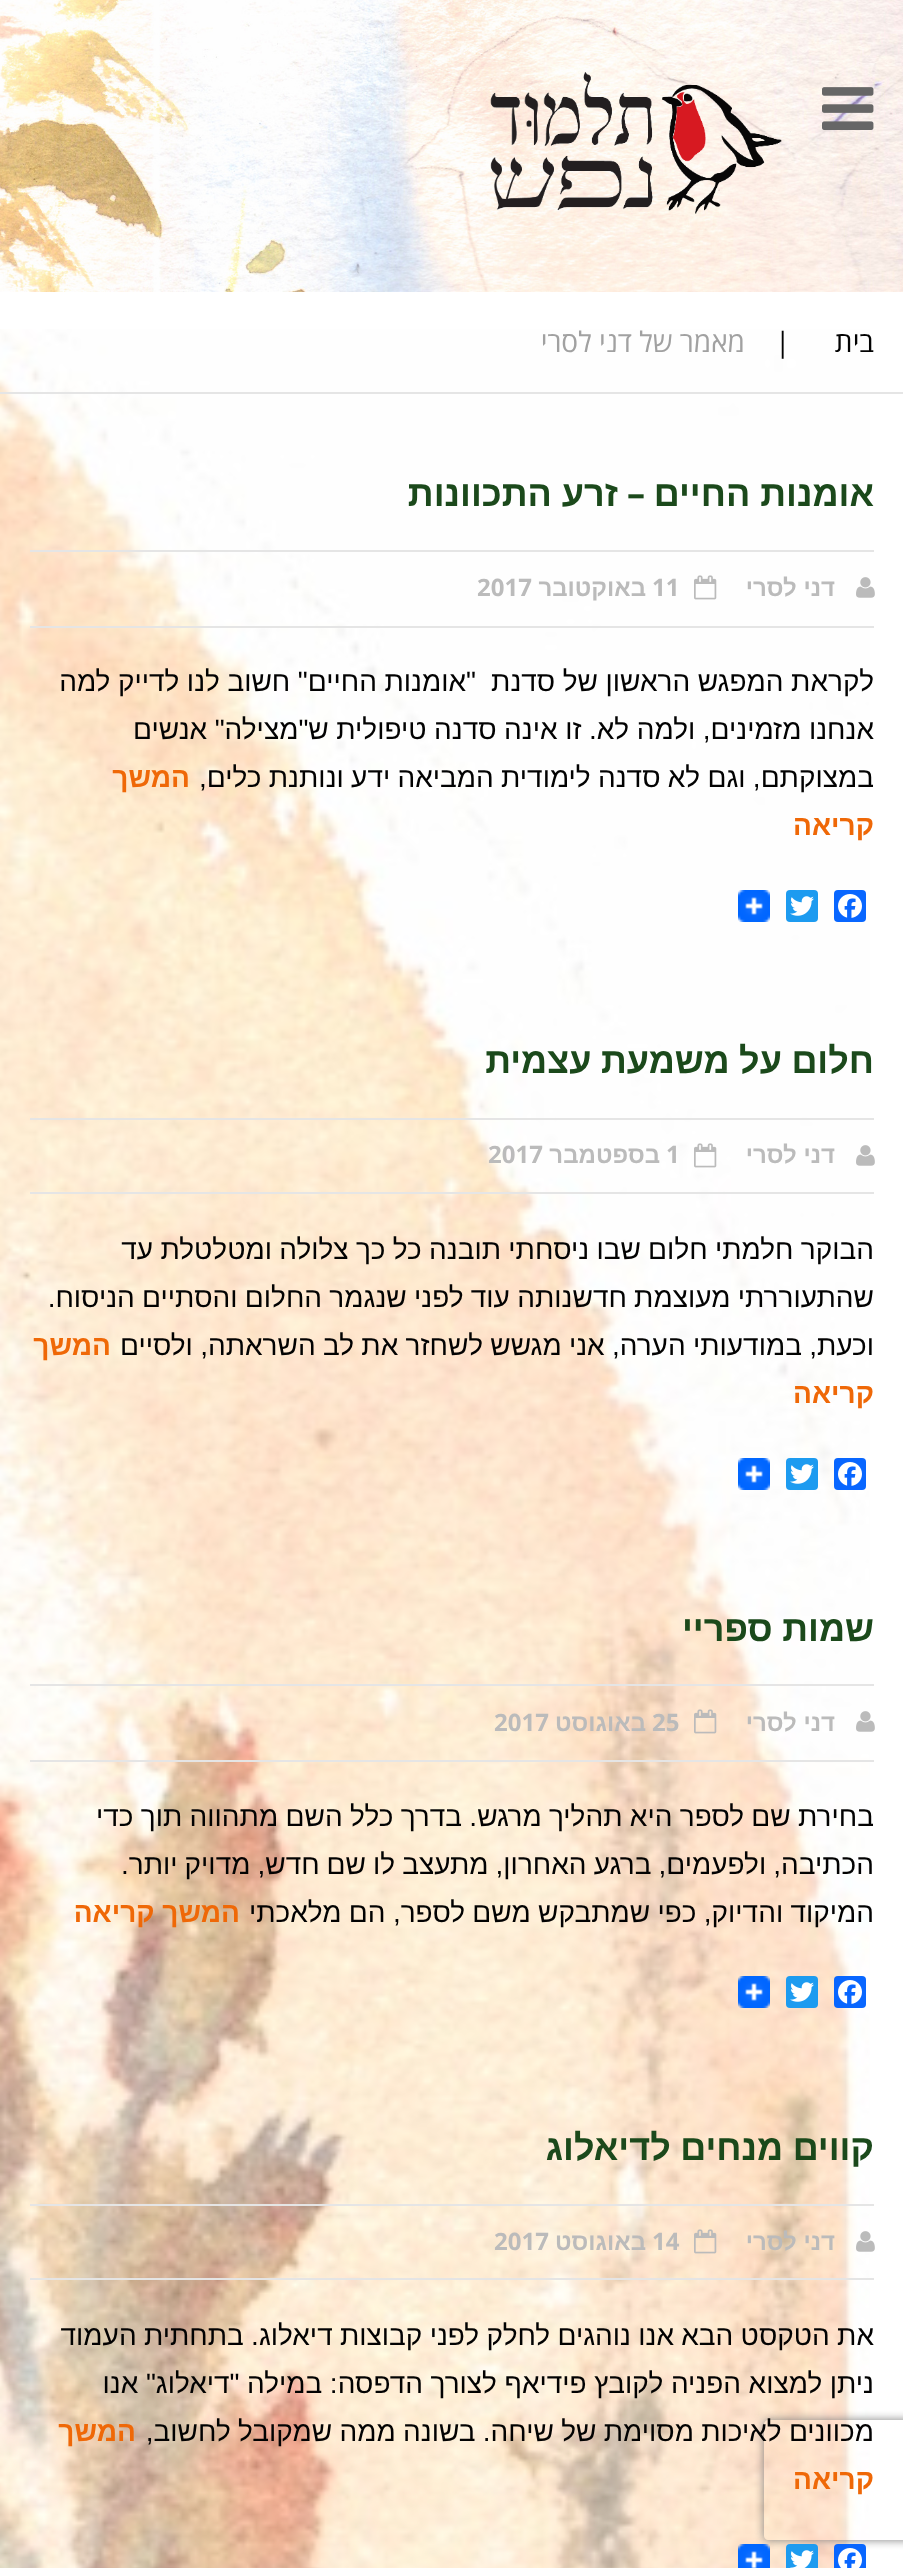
async function draw(canvas) {
  canvas.width = 903;
  canvas.height = 2568;
  const ctx = canvas.getContext('2d');
  ctx.miterLimit = 4;
  ctx.fontKerning = 'normal';
  function label(s, x, y, font, color) {
    ctx.font = font;
    ctx.fillStyle = color;
    ctx.fillText(s, x, y);
  }
  function rect(x, y, w, h, color) {
    ctx.fillStyle = color;
    ctx.fillRect(x, y, w, h);
  }
  function roundedRect(x, y, w, h, r, color) {
    ctx.fillStyle = color;
    ctx.beginPath();
    ctx.roundRect(x, y, w, h, r);
    ctx.fill();
  }
  async function image(src, x, y, w, h) {
    const img = new Image();
    img.src = src;
    await img.decode();
    ctx.drawImage(img, x, y, w, h);
  }
  let path;

  rect(0, 0, 903, 2568, '#fff');
  await image('assets/img1.png', 0, 329, 870, 2239);
  await image('assets/img2.png', 0, 0, 903, 292);
  await image('assets/img3.png', 822, 87, 52, 43);
  await image('assets/img4.png', 490, 72, 292, 142);
  rect(0, 392, 903, 2, '#e5e5e5');
  ctx.direction = 'rtl';
  label('בית', 874, 352, '28px Open Sans', '#020202');
  ctx.direction = 'ltr';
  label('|', 775, 352, '28px Open Sans', '#020202');
  ctx.direction = 'rtl';
  label('מאמר של דני לסרי', 745, 352, '28px Open Sans', '#a1a1a1');
  label('אומנות החיים', 874, 506, 'bold 36px Liberation Sans', '#1b491b');
  label('–', 645, 506, 'bold 36px Noto Sans', '#1b491b');
  label('זרע התכוונות', 618, 506, 'bold 36px Liberation Sans', '#1b491b');
  rect(30, 550, 844, 2, '#e5e5e5');
  rect(30, 626, 844, 2, '#e5e5e5');
  await image('assets/img5.png', 856, 577, 19, 21);
  label('דני לסרי', 835, 596, 'bold 24px Liberation Sans', '#bbb');
  await image('assets/img6.png', 694, 575, 23, 25);
  ctx.direction = 'ltr';
  label('11', 652, 596, 'bold 24px Noto Sans', '#bbb');
  ctx.direction = 'rtl';
  label('באוקטובר', 646, 596, 'bold 24px Liberation Sans', '#bbb');
  ctx.direction = 'ltr';
  label('2017', 477, 596, 'bold 24px Noto Sans', '#bbb');
  ctx.wordSpacing = '-0.25px';
  ctx.direction = 'rtl';
  label('לקראת המפגש הראשון של סדנת  "אומנות החיים" חשוב לנו לדייק למה', 874, 691, '28px Liberation Sans', '#020202');
  label('אנחנו מזמינים, ולמה לא. זו אינה סדנה טיפולית ש"מצילה" אנשים', 874, 739, '28px Liberation Sans', '#020202');
  ctx.wordSpacing = '-0.5px';
  label('במצוקתם, וגם לא סדנה לימודית המביאה ידע ונותנת כלים,', 874, 787, '28px Liberation Sans', '#020202');
  ctx.wordSpacing = '0px';
  label('המשך', 190, 787, 'bold 28px Liberation Sans', '#ef6807');
  label('קריאה', 874, 835, 'bold 28px Liberation Sans', '#ef6807');
  roundedRect(834, 890, 32, 32, 4, '#0866ff');
  await image('assets/img7.png', 838, 894, 24, 24);
  roundedRect(786, 890, 32, 32, 4, '#1d9bf0');
  await image('assets/img8.png', 790, 896, 24, 20);
  await image('assets/img9.png', 738, 890, 32, 32);
  ctx.wordSpacing = '-0.5px';
  label('חלום על משמעת עצמית', 874, 1073, 'bold 36px Liberation Sans', '#1b491b');
  rect(30, 1118, 844, 2, '#e5e5e5');
  rect(30, 1192, 844, 2, '#e5e5e5');
  await image('assets/img5.png', 856, 1145, 19, 21);
  ctx.wordSpacing = '0px';
  label('דני לסרי', 835, 1163, 'bold 24px Liberation Sans', '#bbb');
  await image('assets/img10.png', 694, 1143, 23, 25);
  ctx.direction = 'ltr';
  label('1', 666, 1163, 'bold 24px Noto Sans', '#bbb');
  ctx.direction = 'rtl';
  label('בספטמבר', 660, 1163, 'bold 24px Liberation Sans', '#bbb');
  ctx.direction = 'ltr';
  label('2017', 488, 1163, 'bold 24px Noto Sans', '#bbb');
  ctx.wordSpacing = '-0.5px';
  ctx.direction = 'rtl';
  label('הבוקר חלמתי חלום שבו ניסחתי תובנה כל כך צלולה ומטלטלת עד', 874, 1259, '28px Liberation Sans', '#020202');
  label('שהתעוררתי מעוצמת חדשנותה עוד לפני שנגמר החלום והסתיים הניסוח.', 874, 1307, '28px Liberation Sans', '#020202');
  label('וכעת, במודעותי הערה, אני מגשש לשחזר את לב השראתה, ולסיים', 874, 1355, '28px Liberation Sans', '#020202');
  ctx.wordSpacing = '0px';
  label('המשך', 111, 1355, 'bold 28px Liberation Sans', '#ef6807');
  label('קריאה', 874, 1403, 'bold 28px Liberation Sans', '#ef6807');
  roundedRect(834, 1458, 32, 32, 4, '#0866ff');
  await image('assets/img7.png', 838, 1462, 24, 24);
  roundedRect(786, 1458, 32, 32, 4, '#1d9bf0');
  await image('assets/img8.png', 790, 1464, 24, 20);
  await image('assets/img11.png', 738, 1458, 32, 32);
  ctx.wordSpacing = '-0.5px';
  label('שמות ספריי', 874, 1641, 'bold 36px Liberation Sans', '#1b491b');
  rect(30, 1684, 844, 2, '#e5e5e5');
  rect(30, 1760, 844, 2, '#e5e5e5');
  await image('assets/img5.png', 856, 1711, 19, 21);
  ctx.wordSpacing = '0px';
  label('דני לסרי', 835, 1731, 'bold 24px Liberation Sans', '#bbb');
  await image('assets/img12.png', 694, 1709, 23, 25);
  ctx.direction = 'ltr';
  label('25', 652, 1731, 'bold 24px Noto Sans', '#bbb');
  ctx.direction = 'rtl';
  label('באוגוסט', 646, 1731, 'bold 24px Liberation Sans', '#bbb');
  ctx.direction = 'ltr';
  label('2017', 494, 1731, 'bold 24px Noto Sans', '#bbb');
  ctx.wordSpacing = '-0.5px';
  ctx.direction = 'rtl';
  label('בחירת שם לספר היא תהליך מרגש. בדרך כלל השם מתהווה תוך כדי', 874, 1826, '28px Liberation Sans', '#020202');
  ctx.wordSpacing = '-0.75px';
  label('הכתיבה, ולפעמים, ברגע האחרון, מתעצב לו שם חדש, מדויק יותר.', 874, 1874, '28px Liberation Sans', '#020202');
  ctx.wordSpacing = '-0.5px';
  label('המיקוד והדיוק, כפי שמתבקש משם לספר, הם מלאכתי', 874, 1922, '28px Liberation Sans', '#020202');
  ctx.wordSpacing = '0px';
  label('המשך קריאה', 240, 1922, 'bold 28px Liberation Sans', '#ef6807');
  roundedRect(834, 1976, 32, 32, 4, '#0866ff');
  await image('assets/img7.png', 838, 1980, 24, 24);
  roundedRect(786, 1976, 32, 32, 4, '#1d9bf0');
  await image('assets/img8.png', 790, 1982, 24, 20);
  await image('assets/img13.png', 738, 1976, 32, 32);
  ctx.wordSpacing = '-0.5px';
  label('קווים מנחים לדיאלוג', 874, 2160, 'bold 36px Liberation Sans', '#1b491b');
  rect(30, 2204, 844, 2, '#e5e5e5');
  rect(30, 2278, 844, 2, '#e5e5e5');
  await image('assets/img14.png', 856, 2231, 19, 21);
  ctx.wordSpacing = '0px';
  label('דני לסרי', 835, 2250, 'bold 24px Liberation Sans', '#bbb');
  await image('assets/img15.png', 694, 2229, 23, 25);
  ctx.direction = 'ltr';
  label('14', 652, 2250, 'bold 24px Noto Sans', '#bbb');
  ctx.direction = 'rtl';
  label('באוגוסט', 646, 2250, 'bold 24px Liberation Sans', '#bbb');
  ctx.direction = 'ltr';
  label('2017', 494, 2250, 'bold 24px Noto Sans', '#bbb');
  ctx.wordSpacing = '-0.5px';
  ctx.direction = 'rtl';
  label('את הטקסט הבא אנו נוהגים לחלק לפני קבוצות דיאלוג. בתחתית העמוד', 874, 2345, '28px Liberation Sans', '#020202');
  ctx.wordSpacing = '-0.25px';
  label('ניתן למצוא הפניה לקובץ פידיאף לצורך הדפסה: במילה "דיאלוג" אנו', 874, 2393, '28px Liberation Sans', '#020202');
  ctx.save();
  path = new Path2D('M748 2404H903V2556H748ZM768 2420H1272C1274 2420 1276 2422 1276 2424V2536C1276 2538 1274 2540 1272 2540H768C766 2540 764 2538 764 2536V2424C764 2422 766 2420 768 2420Z');
  ctx.clip(path, 'evenodd');
  ctx.fillStyle = '#808080';
  ctx.filter = 'blur(5px)';
  ctx.beginPath();
  ctx.roundRect(764, 2420, 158, 120, 4);
  ctx.fill();
  ctx.filter = 'none';
  ctx.restore();
  ctx.wordSpacing = '-0.5px';
  label('מכוונים לאיכות מסוימת של שיחה. בשונה ממה שמקובל לחשוב,', 874, 2441, '28px Liberation Sans', '#020202');
  ctx.wordSpacing = '0px';
  label('המשך', 136, 2441, 'bold 28px Liberation Sans', '#ef6807');
  label('קריאה', 874, 2489, 'bold 28px Liberation Sans', '#ef6807');
  roundedRect(834, 2544, 32, 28, 4, '#0866ff');
  await image('assets/img16.png', 838, 2548, 24, 20);
  roundedRect(786, 2544, 32, 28, 4, '#1d9bf0');
  await image('assets/img17.png', 790, 2550, 24, 18);
  await image('assets/img18.png', 738, 2544, 32, 24);
}

draw(document.querySelector('canvas'));
